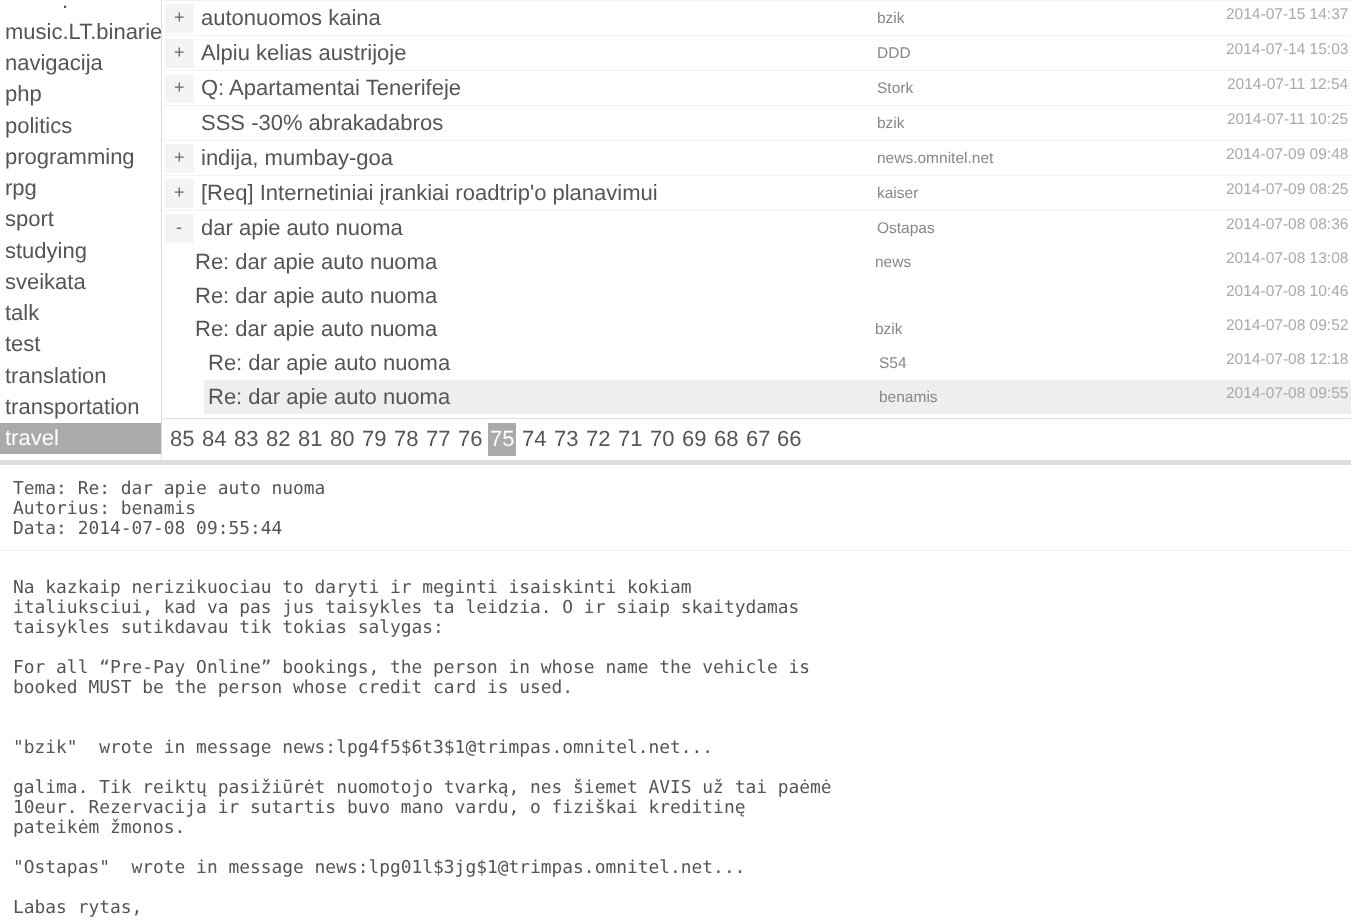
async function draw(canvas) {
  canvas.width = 1351;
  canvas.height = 920;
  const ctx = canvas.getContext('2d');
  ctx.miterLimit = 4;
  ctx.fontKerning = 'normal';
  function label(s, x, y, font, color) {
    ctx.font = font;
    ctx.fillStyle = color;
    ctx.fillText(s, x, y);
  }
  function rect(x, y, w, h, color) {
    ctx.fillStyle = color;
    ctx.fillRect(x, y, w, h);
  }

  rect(0, 0, 1351, 920, '#fff');
  rect(161, 0, 1, 460, '#ddd');
  label('.', 62, 8, '22px Liberation Sans', '#555');
  ctx.save();
  ctx.beginPath();
  ctx.rect(0, 0, 161, 460);
  ctx.clip();
  label('music.LT.binarie', 5, 39, '22px Liberation Sans', '#555');
  ctx.restore();
  label('navigacija', 5, 70, '22px Liberation Sans', '#555');
  label('php', 5, 101, '22px Liberation Sans', '#555');
  label('politics', 5, 133, '22px Liberation Sans', '#555');
  label('programming', 5, 164, '22px Liberation Sans', '#555');
  label('rpg', 5, 195, '22px Liberation Sans', '#555');
  label('sport', 5, 226, '22px Liberation Sans', '#555');
  label('studying', 5, 258, '22px Liberation Sans', '#555');
  label('sveikata', 5, 289, '22px Liberation Sans', '#555');
  label('talk', 5, 320, '22px Liberation Sans', '#555');
  label('test', 5, 351, '22px Liberation Sans', '#555');
  label('translation', 5, 383, '22px Liberation Sans', '#555');
  label('transportation', 5, 414, '22px Liberation Sans', '#555');
  rect(0, 423, 161, 31, '#aaa');
  label('travel', 5, 445, '22px Liberation Sans', '#fff');
  rect(163, 0, 1188, 1, '#f2f2f2');
  rect(165, 4, 29, 29, '#f4f4f4');
  label('+', 174, 23, '18px Liberation Sans', '#666');
  label('autonuomos kaina', 201, 25, '22px Liberation Sans', '#555');
  label('bzik', 877, 23, '15.5px Liberation Sans', '#888');
  label('2014-07-15 14:37', 1226, 19, '15.5px Liberation Sans', '#aaa');
  rect(163, 35, 1188, 1, '#f2f2f2');
  rect(165, 39, 29, 29, '#f4f4f4');
  label('+', 174, 58, '18px Liberation Sans', '#666');
  label('Alpiu kelias austrijoje', 201, 60, '22px Liberation Sans', '#555');
  label('DDD', 877, 58, '15.5px Liberation Sans', '#888');
  label('2014-07-14 15:03', 1226, 54, '15.5px Liberation Sans', '#aaa');
  rect(163, 70, 1188, 1, '#f2f2f2');
  rect(165, 74, 29, 29, '#f4f4f4');
  label('+', 174, 93, '18px Liberation Sans', '#666');
  label('Q: Apartamentai Tenerifeje', 201, 95, '22px Liberation Sans', '#555');
  label('Stork', 877, 93, '15.5px Liberation Sans', '#888');
  label('2014-07-11 12:54', 1227, 89, '15.5px Liberation Sans', '#aaa');
  rect(163, 105, 1188, 1, '#f2f2f2');
  label('SSS -30% abrakadabros', 201, 130, '22px Liberation Sans', '#555');
  label('bzik', 877, 128, '15.5px Liberation Sans', '#888');
  label('2014-07-11 10:25', 1227, 124, '15.5px Liberation Sans', '#aaa');
  rect(163, 140, 1188, 1, '#f2f2f2');
  rect(165, 144, 29, 29, '#f4f4f4');
  label('+', 174, 163, '18px Liberation Sans', '#666');
  label('indija, mumbay-goa', 201, 165, '22px Liberation Sans', '#555');
  label('news.omnitel.net', 877, 163, '15.5px Liberation Sans', '#888');
  label('2014-07-09 09:48', 1226, 159, '15.5px Liberation Sans', '#aaa');
  rect(163, 175, 1188, 1, '#f2f2f2');
  rect(165, 179, 29, 29, '#f4f4f4');
  label('+', 174, 198, '18px Liberation Sans', '#666');
  label('[Req] Internetiniai įrankiai roadtrip\'o planavimui', 201, 200, '22px Liberation Sans', '#555');
  label('kaiser', 877, 198, '15.5px Liberation Sans', '#888');
  label('2014-07-09 08:25', 1226, 194, '15.5px Liberation Sans', '#aaa');
  rect(163, 210, 1188, 1, '#f2f2f2');
  rect(165, 214, 29, 29, '#f4f4f4');
  label('-', 176, 233, '18px Liberation Sans', '#666');
  label('dar apie auto nuoma', 201, 235, '22px Liberation Sans', '#555');
  label('Ostapas', 877, 233, '15.5px Liberation Sans', '#888');
  label('2014-07-08 08:36', 1226, 229, '15.5px Liberation Sans', '#aaa');
  label('Re: dar apie auto nuoma', 195, 269, '22px Liberation Sans', '#555');
  label('news', 875, 267, '15.5px Liberation Sans', '#888');
  label('2014-07-08 13:08', 1226, 263, '15.5px Liberation Sans', '#aaa');
  label('Re: dar apie auto nuoma', 195, 303, '22px Liberation Sans', '#555');
  label('2014-07-08 10:46', 1226, 296, '15.5px Liberation Sans', '#aaa');
  label('Re: dar apie auto nuoma', 195, 336, '22px Liberation Sans', '#555');
  label('bzik', 875, 334, '15.5px Liberation Sans', '#888');
  label('2014-07-08 09:52', 1226, 330, '15.5px Liberation Sans', '#aaa');
  label('Re: dar apie auto nuoma', 208, 370, '22px Liberation Sans', '#555');
  label('S54', 879, 368, '15.5px Liberation Sans', '#888');
  label('2014-07-08 12:18', 1226, 364, '15.5px Liberation Sans', '#aaa');
  rect(204, 380, 1147, 34, '#eee');
  label('Re: dar apie auto nuoma', 208, 404, '22px Liberation Sans', '#555');
  label('benamis', 879, 402, '15.5px Liberation Sans', '#888');
  label('2014-07-08 09:55', 1226, 398, '15.5px Liberation Sans', '#aaa');
  rect(163, 418, 1188, 1, '#ddd');
  label('85', 170, 446, '22px Liberation Sans', '#555');
  label('84', 202, 446, '22px Liberation Sans', '#555');
  label('83', 234, 446, '22px Liberation Sans', '#555');
  label('82', 266, 446, '22px Liberation Sans', '#555');
  label('81', 298, 446, '22px Liberation Sans', '#555');
  label('80', 330, 446, '22px Liberation Sans', '#555');
  label('79', 362, 446, '22px Liberation Sans', '#555');
  label('78', 394, 446, '22px Liberation Sans', '#555');
  label('77', 426, 446, '22px Liberation Sans', '#555');
  label('76', 458, 446, '22px Liberation Sans', '#555');
  rect(488, 423, 28, 33, '#aaa');
  label('75', 490, 446, '22px Liberation Sans', '#fff');
  label('74', 522, 446, '22px Liberation Sans', '#555');
  label('73', 554, 446, '22px Liberation Sans', '#555');
  label('72', 586, 446, '22px Liberation Sans', '#555');
  label('71', 618, 446, '22px Liberation Sans', '#555');
  label('70', 650, 446, '22px Liberation Sans', '#555');
  label('69', 682, 446, '22px Liberation Sans', '#555');
  label('68', 714, 446, '22px Liberation Sans', '#555');
  label('67', 746, 446, '22px Liberation Sans', '#555');
  label('66', 777, 446, '22px Liberation Sans', '#555');
  rect(0, 460, 1351, 5, '#ddd');
  rect(0, 550, 1351, 1, '#f2f2f2');
  label('Tema: Re: dar apie auto nuoma', 13, 494, '17.9px DejaVu Sans Mono', '#555');
  label('Autorius: benamis', 13, 514, '17.9px DejaVu Sans Mono', '#555');
  label('Data: 2014-07-08 09:55:44', 13, 534, '17.9px DejaVu Sans Mono', '#555');
  label('Na kazkaip nerizikuociau to daryti ir meginti isaiskinti kokiam', 13, 593, '17.9px DejaVu Sans Mono', '#555');
  label('italiuksciui, kad va pas jus taisykles ta leidzia. O ir siaip skaitydamas', 13, 613, '17.9px DejaVu Sans Mono', '#555');
  label('taisykles sutikdavau tik tokias salygas:', 13, 633, '17.9px DejaVu Sans Mono', '#555');
  label('For all “Pre-Pay Online” bookings, the person in whose name the vehicle is', 13, 673, '17.9px DejaVu Sans Mono', '#555');
  label('booked MUST be the person whose credit card is used.', 13, 693, '17.9px DejaVu Sans Mono', '#555');
  label('"bzik"  wrote in message news:lpg4f5$6t3$1@trimpas.omnitel.net...', 13, 753, '17.9px DejaVu Sans Mono', '#555');
  label('galima. Tik reiktų pasižiūrėt nuomotojo tvarką, nes šiemet AVIS už tai paėmė', 13, 793, '17.9px DejaVu Sans Mono', '#555');
  label('10eur. Rezervacija ir sutartis buvo mano vardu, o fiziškai kreditinę', 13, 813, '17.9px DejaVu Sans Mono', '#555');
  label('pateikėm žmonos.', 13, 833, '17.9px DejaVu Sans Mono', '#555');
  label('"Ostapas"  wrote in message news:lpg01l$3jg$1@trimpas.omnitel.net...', 13, 873, '17.9px DejaVu Sans Mono', '#555');
  label('Labas rytas,', 13, 913, '17.9px DejaVu Sans Mono', '#555');
}

draw(document.querySelector('canvas'));
